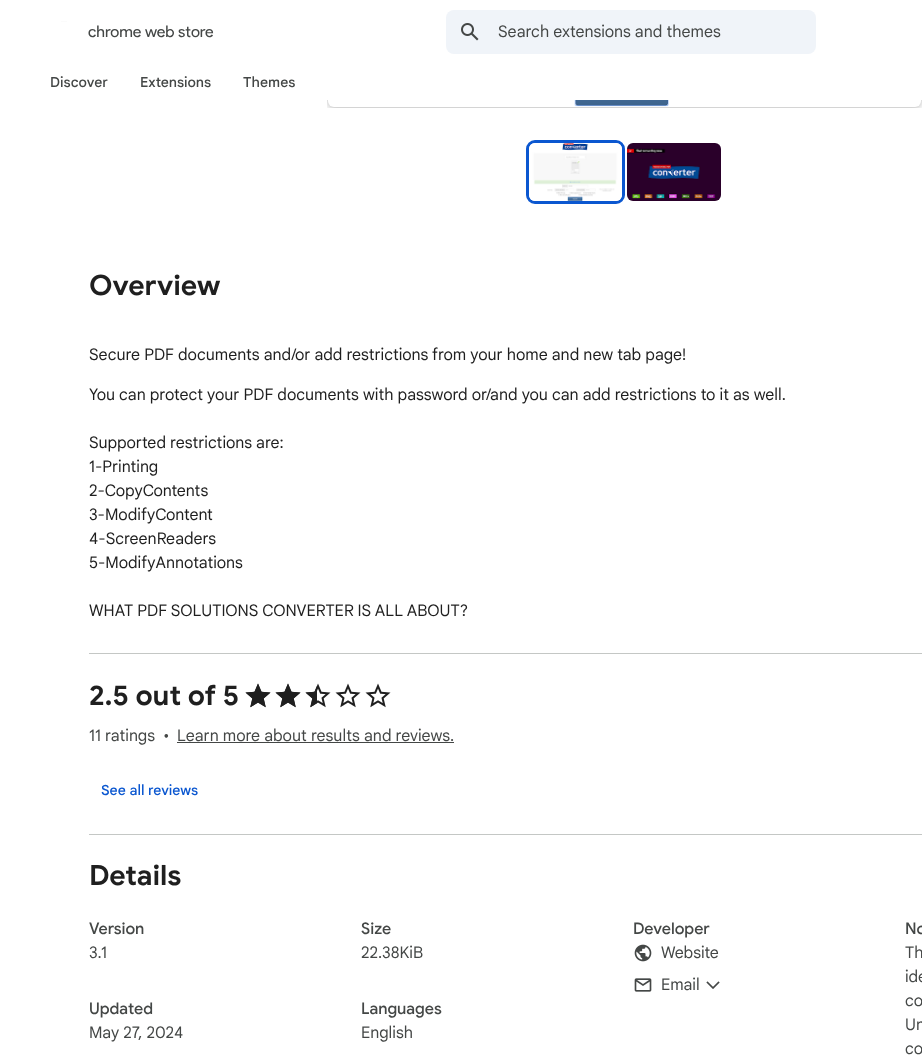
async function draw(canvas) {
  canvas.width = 922;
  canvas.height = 1064;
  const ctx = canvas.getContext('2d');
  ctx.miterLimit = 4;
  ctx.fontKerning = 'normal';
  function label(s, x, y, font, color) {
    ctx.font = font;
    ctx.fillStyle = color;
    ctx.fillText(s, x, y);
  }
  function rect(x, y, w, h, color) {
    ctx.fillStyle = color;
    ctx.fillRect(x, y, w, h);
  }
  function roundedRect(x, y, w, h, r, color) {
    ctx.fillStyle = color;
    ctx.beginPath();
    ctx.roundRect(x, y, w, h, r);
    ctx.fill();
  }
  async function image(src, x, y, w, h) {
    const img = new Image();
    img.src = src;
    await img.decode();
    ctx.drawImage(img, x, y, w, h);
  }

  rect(0, 0, 922, 1064, '#fff');
  await image('assets/img1.png', 61, 21, 6, 1);
  label('chrome web store', 88, 37, '16px Product Sans', '#444746');
  roundedRect(446, 10, 370, 44, 8, '#f0f4f9');
  await image('assets/img2.png', 461, 23, 18, 18);
  label('Search extensions and themes', 498, 37, '16px Google Sans', '#444746');
  label('Discover', 50, 87, '500 14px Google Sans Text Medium', '#444746');
  label('Extensions', 140, 87, '500 14px Google Sans Text Medium', '#444746');
  label('Themes', 243, 87, '500 14px Google Sans Text Medium', '#444746');
  await image('assets/img3.png', 327, 100, 595, 8);
  ctx.beginPath();
  ctx.roundRect(527.5, 141.5, 96, 61, 7.5);
  ctx.strokeStyle = '#0b57d0';
  ctx.lineWidth = 3;
  ctx.stroke();
  await image('assets/img4.png', 529, 143, 93, 58);
  await image('assets/img5.png', 627, 143, 94, 58);
  rect(89, 653, 833, 1, '#c4c7c5');
  label('Overview', 89, 295, 'bold 28px Google Sans', '#1f1f1f');
  label('Secure PDF documents and/or add restrictions from your home and new tab page!', 89, 360, '16px Google Sans', '#1f1f1f');
  label('You can protect your PDF documents with password or/and you can add restrictions to it as well.', 89, 400, '16px Google Sans', '#1f1f1f');
  label('Supported restrictions are:', 89, 448, '16px Google Sans', '#1f1f1f');
  label('1-Printing', 89, 472, '16px Google Sans', '#1f1f1f');
  label('2-CopyContents', 89, 496, '16px Google Sans', '#1f1f1f');
  label('3-ModifyContent', 89, 520, '16px Google Sans', '#1f1f1f');
  label('4-ScreenReaders', 89, 544, '16px Google Sans', '#1f1f1f');
  label('5-ModifyAnnotations', 89, 568, '16px Google Sans', '#1f1f1f');
  label('WHAT PDF SOLUTIONS CONVERTER IS ALL ABOUT?', 89, 616, '16px Google Sans', '#1f1f1f');
  rect(89, 834, 833, 1, '#c4c7c5');
  label('2.5 out of 5', 89, 705, 'bold 28px Google Sans', '#1f1f1f');
  await image('assets/img6.png', 245, 683, 26, 25);
  await image('assets/img6.png', 275, 683, 26, 25);
  await image('assets/img6.png', 305, 683, 26, 25);
  await image('assets/img6.png', 335, 683, 26, 25);
  await image('assets/img6.png', 365, 683, 26, 25);
  await image('assets/img7.png', 245, 683, 26, 25);
  await image('assets/img7.png', 275, 683, 26, 25);
  await image('assets/img8.png', 305, 686, 12, 22);
  label('11 ratings', 89, 741, '16px Google Sans', '#444746');
  label('•', 163, 741, '16px Google Sans', '#444746');
  label('Learn more about results and reviews.', 177, 741, '16px Google Sans', '#444746');
  rect(177, 742, 277, 1, '#444746');
  label('See all reviews', 101, 795, '500 14px Google Sans Text Medium', '#0b57d0');
  label('Details', 89, 885, 'bold 28px Google Sans', '#1f1f1f');
  label('Version', 89, 934, '500 16px Google Sans', '#444746');
  label('3.1', 89, 958, '16px Google Sans', '#444746');
  label('Size', 361, 934, '500 16px Google Sans', '#444746');
  label('22.38KiB', 361, 958, '16px Google Sans', '#444746');
  label('Developer', 633, 934, '500 16px Google Sans', '#444746');
  await image('assets/img9.png', 634, 944, 18, 18);
  label('Website', 661, 958, '16px Google Sans', '#444746');
  await image('assets/img10.png', 634, 978, 18, 14);
  label('Email', 661, 990, '16px Google Sans', '#444746');
  await image('assets/img11.png', 706, 981, 14, 8);
  label('No', 905, 934, '500 16px Google Sans', '#444746');
  label('Th', 905, 958, '16px Google Sans', '#444746');
  label('ide', 905, 982, '16px Google Sans', '#444746');
  label('co', 905, 1006, '16px Google Sans', '#444746');
  label('Un', 905, 1030, '16px Google Sans', '#444746');
  label('co', 905, 1054, '16px Google Sans', '#444746');
  label('Updated', 89, 1014, '500 16px Google Sans', '#444746');
  label('May 27, 2024', 89, 1038, '16px Google Sans', '#444746');
  label('Languages', 361, 1014, '500 16px Google Sans', '#444746');
  label('English', 361, 1038, '16px Google Sans', '#444746');
}

draw(document.querySelector('canvas'));
